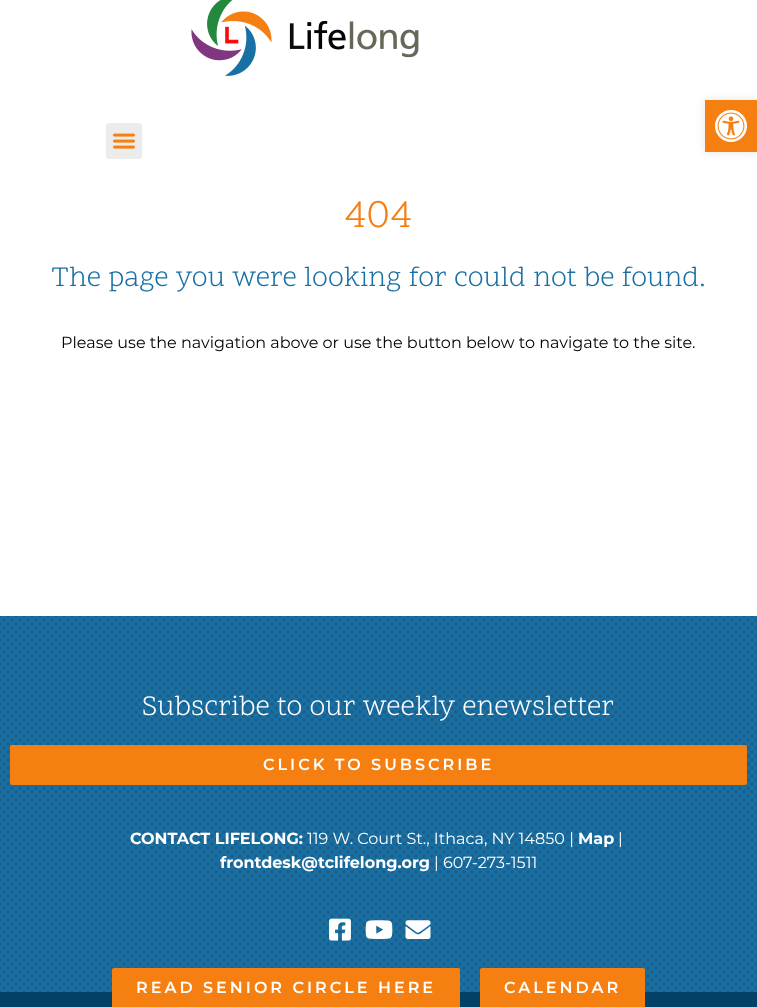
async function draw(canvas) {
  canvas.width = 757;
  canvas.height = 1007;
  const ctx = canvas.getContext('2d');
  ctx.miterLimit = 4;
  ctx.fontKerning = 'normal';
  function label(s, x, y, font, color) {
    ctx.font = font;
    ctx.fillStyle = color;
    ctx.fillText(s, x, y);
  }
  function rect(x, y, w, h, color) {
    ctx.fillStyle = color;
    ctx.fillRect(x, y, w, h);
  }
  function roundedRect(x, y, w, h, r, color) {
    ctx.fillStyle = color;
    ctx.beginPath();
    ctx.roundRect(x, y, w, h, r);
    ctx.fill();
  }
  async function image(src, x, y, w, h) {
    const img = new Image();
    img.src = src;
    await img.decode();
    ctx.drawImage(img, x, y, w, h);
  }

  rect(0, 0, 757, 1007, '#fff');
  await image('assets/img1.png', 191, 0, 228, 76);
  roundedRect(106, 123, 36, 36, 3, '#ececec');
  await image('assets/img2.png', 113, 133, 22, 16);
  ctx.fillStyle = '#0000001a';
  ctx.filter = 'blur(5px)';
  ctx.beginPath();
  ctx.rect(705, 100, 52, 52);
  ctx.fill();
  ctx.filter = 'none';
  rect(705, 100, 52, 52, '#f57f11');
  await image('assets/img3.png', 715, 110, 32, 32);
  label('404', 344, 227, '40px Scope One', '#f57f11');
  label('The page you were looking for could not be found.', 51, 286, '28.8px Scope One', '#1970a5');
  label('Please use the navigation above or use the button below to navigate to the site.', 61, 348, '16px Montserrat', '#000');
  rect(0, 616, 757, 376, '#1970a5');
  await image('assets/img4.png', 0, 616, 757, 376);
  label('Subscribe to our weekly enewsletter', 142, 715, '28.8px Scope One', '#fff');
  roundedRect(10, 745, 737, 40, 2, '#f57f11');
  ctx.letterSpacing = '3px';
  label('CLICK TO SUBSCRIBE', 263, 770, '600 16px Montserrat', '#fff');
  ctx.letterSpacing = '0px';
  label('CONTACT LIFELONG:', 130, 844, 'bold 16px Montserrat', '#fff');
  label('119 W. Court St., Ithaca, NY 14850 |', 307, 844, '16px Montserrat', '#fff');
  label('Map', 578, 844, 'bold 16px Montserrat', '#fff');
  label('|', 618, 844, '16px Montserrat', '#fff');
  label('frontdesk@tclifelong.org', 220, 868, 'bold 16px Montserrat', '#fff');
  label('| 607-273-1511', 434, 868, '16px Montserrat', '#fff');
  await image('assets/img5.png', 329, 918, 22, 23);
  await image('assets/img6.png', 365, 920, 28, 19);
  await image('assets/img7.png', 405, 920, 26, 19);
  rect(0, 992, 757, 15, '#034266');
  roundedRect(112, 968, 348, 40, 2, '#f57f11');
  ctx.letterSpacing = '3px';
  label('READ SENIOR CIRCLE HERE', 136, 993, '600 16px Montserrat', '#fff');
  roundedRect(480, 968, 165, 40, 2, '#f57f11');
  label('CALENDAR', 504, 993, '600 16px Montserrat', '#fff');
}

draw(document.querySelector('canvas'));
